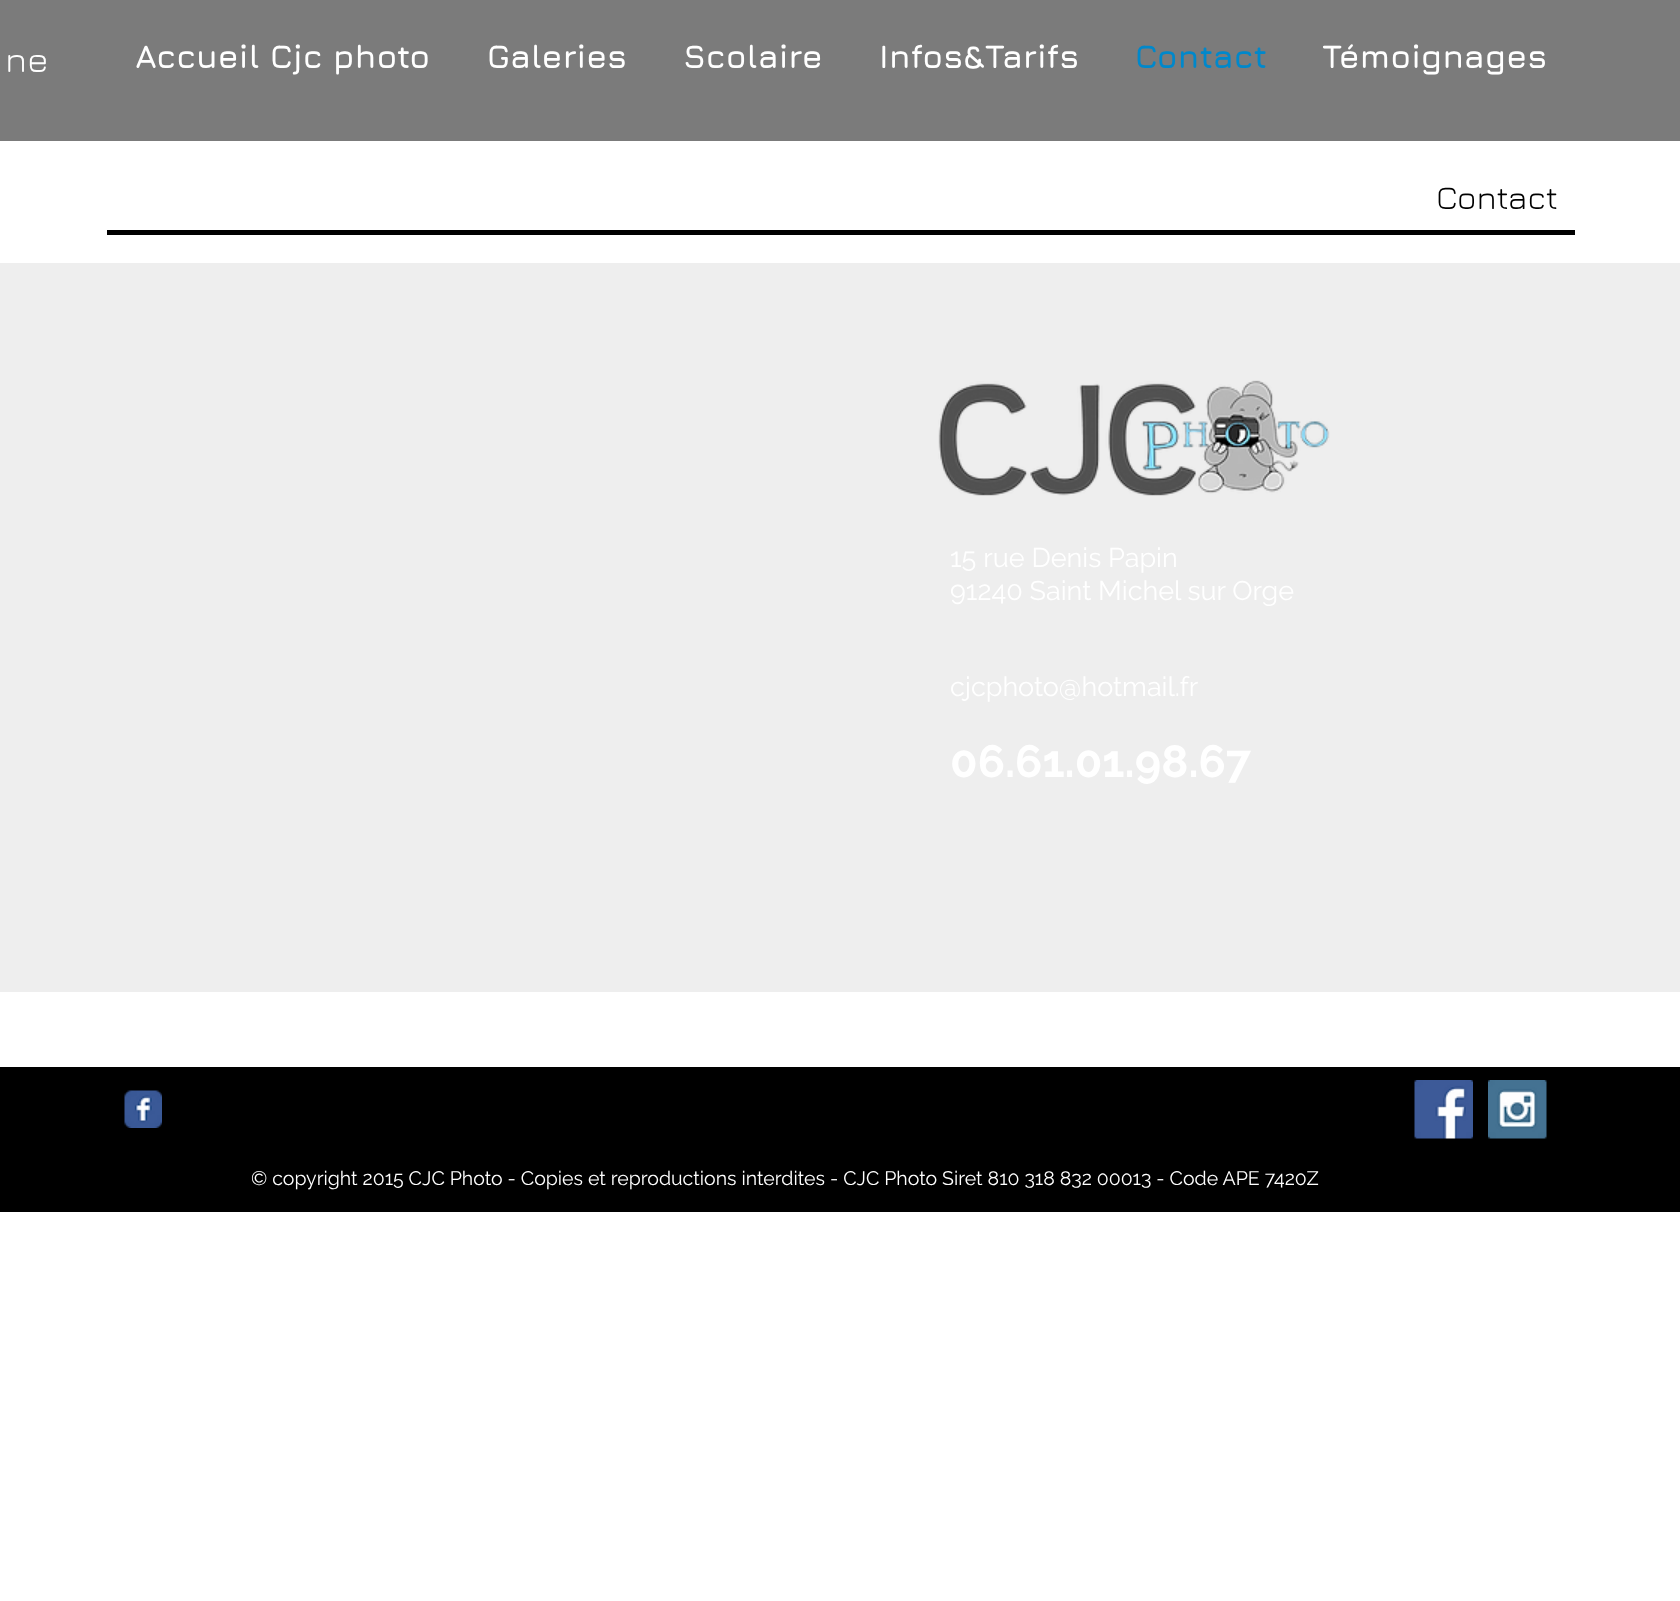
async function draw(canvas) {
  canvas.width = 1680;
  canvas.height = 1601;
  const ctx = canvas.getContext('2d');
  ctx.miterLimit = 4;
  ctx.fontKerning = 'normal';
  function label(s, x, y, font, color) {
    ctx.font = font;
    ctx.fillStyle = color;
    ctx.fillText(s, x, y);
  }
  function rect(x, y, w, h, color) {
    ctx.fillStyle = color;
    ctx.fillRect(x, y, w, h);
  }
  async function image(src, x, y, w, h) {
    const img = new Image();
    img.src = src;
    await img.decode();
    ctx.drawImage(img, x, y, w, h);
  }

  rect(0, 0, 1680, 1601, '#fff');
  rect(0, 0, 1680, 141, '#7b7b7b');
  label('ne', 5, 72, '36px Jura', '#fff');
  label('Accueil Cjc photo', 135, 68, 'bold 33px Jura', '#fff');
  label('Galeries', 487, 68, 'bold 33px Jura', '#fff');
  label('Scolaire', 683, 68, 'bold 33px Jura', '#fff');
  label('Infos&Tarifs', 879, 68, 'bold 33px Jura', '#fff');
  label('Contact', 1135, 68, 'bold 33px Jura', '#0088cb');
  label('Témoignages', 1322, 68, 'bold 33px Jura', '#fff');
  label('Contact', 1436, 209, '33px Jura', '#000');
  rect(107, 230, 1468, 5, '#000');
  rect(0, 263, 1680, 729, '#eee');
  await image('assets/img1.png', 938, 380, 392, 116);
  label('15 rue Denis Papin', 950, 567, '27px Raleway', '#fff');
  label('91240 Saint Michel sur Orge', 950, 600, '27px Raleway', '#fff');
  label('cjcphoto@hotmail.fr', 950, 696, '27px Raleway', '#fff');
  label('06.61.01.98.67', 950, 777, 'bold 45px Raleway', '#fff');
  rect(0, 1067, 1680, 145, '#000');
  await image('assets/img2.png', 124, 1090, 38, 38);
  await image('assets/img3.png', 1414, 1080, 59, 59);
  await image('assets/img4.png', 1488, 1080, 59, 59);
  label('© copyright 2015 CJC Photo - Copies et reproductions interdites - CJC Photo Siret 810 318 832 00013 - Code APE 7420Z', 251, 1185, '19.5px Raleway', '#fff');
}

draw(document.querySelector('canvas'));
